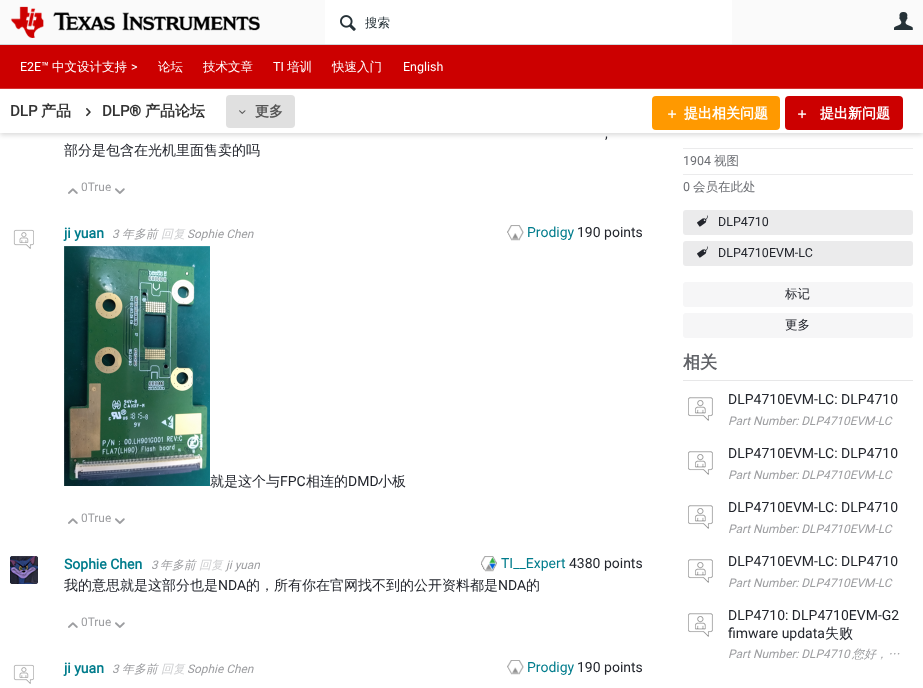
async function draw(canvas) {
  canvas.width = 923;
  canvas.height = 688;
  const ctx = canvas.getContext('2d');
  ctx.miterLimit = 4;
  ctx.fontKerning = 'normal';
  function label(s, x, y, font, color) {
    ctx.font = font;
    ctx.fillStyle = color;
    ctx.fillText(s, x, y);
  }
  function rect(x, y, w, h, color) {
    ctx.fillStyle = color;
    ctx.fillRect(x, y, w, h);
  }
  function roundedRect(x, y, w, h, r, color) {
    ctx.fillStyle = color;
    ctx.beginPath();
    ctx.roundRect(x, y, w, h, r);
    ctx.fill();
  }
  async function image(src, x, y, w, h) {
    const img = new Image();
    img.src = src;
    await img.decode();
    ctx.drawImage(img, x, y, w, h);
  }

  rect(0, 0, 923, 688, '#fff');
  ctx.fillStyle = '#00000026';
  ctx.filter = 'blur(2.5px)';
  ctx.beginPath();
  ctx.rect(0, 2, 923, 133);
  ctx.fill();
  ctx.filter = 'none';
  rect(0, 89, 923, 44, '#fff');
  rect(0, 0, 923, 44, '#fafafa');
  rect(0, 44, 923, 1, '#cfd8dc');
  await image('assets/img1.png', 10, 6, 250, 32);
  rect(325, 0, 407, 44, '#fff');
  await image('assets/img2.png', 340, 15, 16, 16);
  label('搜索', 365, 27, '500 12.5px WenQuanYi Zen Hei', '#263238');
  await image('assets/img3.png', 894, 12, 19, 18);
  rect(0, 45, 923, 43, '#c00');
  rect(0, 88, 923, 1, '#d63333');
  label('E2E™', 20, 71, '12.5px Roboto', '#fff');
  label('中文设计支持', 52, 71, '500 12.5px WenQuanYi Zen Hei', '#fff');
  label('>', 131, 71, '12.5px Roboto', '#fff');
  label('论坛', 158, 71, '500 12.5px WenQuanYi Zen Hei', '#fff');
  label('技术文章', 203, 71, '500 12.5px WenQuanYi Zen Hei', '#fff');
  label('TI', 273, 71, '12.5px Roboto', '#fff');
  label('培训', 287, 71, '500 12.5px WenQuanYi Zen Hei', '#fff');
  label('快速入门', 332, 71, '500 12.5px WenQuanYi Zen Hei', '#fff');
  label('English', 403, 71, '12.5px Roboto', '#fff');
  label('DLP', 10, 116, 'bold 15px Roboto', '#333');
  label('产品', 41, 116, 'bold 15px WenQuanYi Zen Hei', '#333');
  await image('assets/img4.png', 86, 108, 5, 9);
  label('DLP®︎', 102, 116, 'bold 15px Roboto', '#333');
  label('产品论坛', 145, 116, 'bold 15px WenQuanYi Zen Hei', '#333');
  roundedRect(226, 95, 69, 33, 4, '#e0e0e0');
  await image('assets/img5.png', 239, 110, 7, 4);
  label('更多', 255, 116, 'bold 14px WenQuanYi Zen Hei', '#555');
  roundedRect(652, 96, 128, 34, 4, '#f90');
  await image('assets/img6.png', 668, 110, 9, 9);
  label('提出相关问题', 684, 118, 'bold 14px WenQuanYi Zen Hei', '#fff');
  roundedRect(785, 96, 118, 34, 4, '#c00');
  await image('assets/img7.png', 798, 110, 9, 9);
  label('提出新问题', 820, 118, 'bold 14px WenQuanYi Zen Hei', '#fff');
  label(',', 605, 138, '14px Roboto', '#22252c');
  label('部分是包含在光机里面售卖的吗', 64, 155, '500 14px WenQuanYi Zen Hei', '#22252c');
  await image('assets/img8.png', 68, 188, 10, 6);
  label('0True', 81, 191, '11.9px Roboto', '#9c9da0');
  await image('assets/img9.png', 115, 188, 10, 6);
  await image('assets/img10.png', 13, 229, 21, 20);
  label('ji yuan', 64, 238, 'bold 14px Roboto', '#007c8c');
  label('3', 112, 238, 'italic 11.9px Roboto', '#9c9da0');
  label('年多前', 122, 238, 'italic 500 11.9px WenQuanYi Zen Hei', '#9c9da0');
  label('回复', 161, 238, 'italic 500 11.9px WenQuanYi Zen Hei', '#cecfd1');
  label('Sophie Chen', 187, 238, 'italic 11.9px Roboto', '#9c9da0');
  await image('assets/img11.png', 507, 225, 17, 16);
  label('Prodigy', 527, 237, '14px Roboto', '#007c8c');
  label('190 points', 577, 237, '14px Roboto', '#22252c');
  await image('assets/img12.png', 64, 246, 146, 240);
  label('就是这个与', 210, 486, '500 14px WenQuanYi Zen Hei', '#22252c');
  label('FPC', 280, 486, '14px Roboto', '#22252c');
  label('相连的', 306, 486, '500 14px WenQuanYi Zen Hei', '#22252c');
  label('DMD', 348, 486, '14px Roboto', '#22252c');
  label('小板', 378, 486, '500 14px WenQuanYi Zen Hei', '#22252c');
  await image('assets/img8.png', 68, 518, 10, 6);
  label('0True', 81, 522, '11.9px Roboto', '#9c9da0');
  await image('assets/img9.png', 115, 518, 10, 6);
  await image('assets/img13.png', 10, 556, 28, 28);
  await image('assets/img14.png', 10, 556, 28, 28);
  label('Sophie Chen', 64, 569, 'bold 14px Roboto', '#007c8c');
  label('3', 151, 569, 'italic 11.9px Roboto', '#9c9da0');
  label('年多前', 160, 569, 'italic 500 11.9px WenQuanYi Zen Hei', '#9c9da0');
  label('回复', 199, 569, 'italic 500 11.9px WenQuanYi Zen Hei', '#cecfd1');
  label('ji yuan', 226, 569, 'italic 11.9px Roboto', '#9c9da0');
  await image('assets/img15.png', 481, 556, 16, 16);
  label('TI__Expert', 501, 568, '14px Roboto', '#007c8c');
  label('4380 points', 569, 568, '14px Roboto', '#22252c');
  label('我的意思就是这部分也是', 64, 590, '500 14px WenQuanYi Zen Hei', '#22252c');
  label('NDA', 218, 590, '14px Roboto', '#22252c');
  label('的，所有你在官网找不到的公开资料都是', 246, 590, '500 14px WenQuanYi Zen Hei', '#22252c');
  label('NDA', 498, 590, '14px Roboto', '#22252c');
  label('的', 526, 590, '500 14px WenQuanYi Zen Hei', '#22252c');
  await image('assets/img8.png', 68, 622, 10, 6);
  label('0True', 81, 626, '11.9px Roboto', '#9c9da0');
  await image('assets/img9.png', 115, 622, 10, 6);
  await image('assets/img10.png', 13, 664, 21, 20);
  label('ji yuan', 64, 673, 'bold 14px Roboto', '#007c8c');
  label('3', 112, 673, 'italic 11.9px Roboto', '#9c9da0');
  label('年多前', 122, 673, 'italic 500 11.9px WenQuanYi Zen Hei', '#9c9da0');
  label('回复', 161, 673, 'italic 500 11.9px WenQuanYi Zen Hei', '#cecfd1');
  label('Sophie Chen', 187, 673, 'italic 11.9px Roboto', '#9c9da0');
  await image('assets/img16.png', 507, 660, 17, 15);
  label('Prodigy', 527, 672, '14px Roboto', '#007c8c');
  label('190 points', 577, 672, '14px Roboto', '#22252c');
  rect(683, 148, 230, 1, '#ebebec');
  rect(683, 174, 230, 1, '#ebebec');
  label('1904', 683, 165, '12.5px Roboto', '#6d6f74');
  label('视图', 714, 165, '500 12.5px WenQuanYi Zen Hei', '#6d6f74');
  label('0', 683, 191, '12.5px Roboto', '#6d6f74');
  label('会员在此处', 693, 191, '500 12.5px WenQuanYi Zen Hei', '#6d6f74');
  roundedRect(683, 210, 230, 25, 3, '#ebebec');
  await image('assets/img17.png', 697, 215, 11, 12);
  label('DLP4710', 718, 226, '12.5px Roboto', '#22252c');
  roundedRect(683, 241, 230, 25, 3, '#ebebec');
  await image('assets/img17.png', 697, 246, 11, 12);
  label('DLP4710EVM-LC', 718, 257, '12.5px Roboto', '#22252c');
  roundedRect(683, 282, 230, 25, 3, '#f6f6f7');
  label('标记', 785, 298, '500 12.5px WenQuanYi Zen Hei', '#22252c');
  roundedRect(683, 313, 230, 25, 3, '#f6f6f7');
  label('更多', 785, 329, '500 12.5px WenQuanYi Zen Hei', '#22252c');
  rect(683, 380, 230, 1, '#e7e7e8');
  label('相关', 683, 368, 'bold 17px WenQuanYi Zen Hei', '#606267');
  label('DLP4710EVM-LC: DLP4710', 728, 404, '14px Roboto', '#22252c');
  await image('assets/img18.png', 688, 397, 25, 24);
  label('Part Number: DLP4710EVM-LC', 728, 425, 'italic 11.9px Roboto', '#9c9da0');
  label('DLP4710EVM-LC: DLP4710', 728, 458, '14px Roboto', '#22252c');
  await image('assets/img18.png', 688, 451, 25, 24);
  label('Part Number: DLP4710EVM-LC', 728, 479, 'italic 11.9px Roboto', '#9c9da0');
  label('DLP4710EVM-LC: DLP4710', 728, 512, '14px Roboto', '#22252c');
  await image('assets/img18.png', 688, 505, 25, 24);
  label('Part Number: DLP4710EVM-LC', 728, 533, 'italic 11.9px Roboto', '#9c9da0');
  label('DLP4710EVM-LC: DLP4710', 728, 566, '14px Roboto', '#22252c');
  await image('assets/img18.png', 688, 559, 25, 24);
  label('Part Number: DLP4710EVM-LC', 728, 587, 'italic 11.9px Roboto', '#9c9da0');
  label('DLP4710: DLP4710EVM-G2', 728, 620, '14px Roboto', '#22252c');
  label('fimware updata', 728, 638, '14px Roboto', '#22252c');
  label('失败', 825, 638, '500 14px WenQuanYi Zen Hei', '#22252c');
  await image('assets/img18.png', 688, 613, 25, 24);
  label('Part Number: DLP4710', 728, 658, 'italic 11.9px Roboto', '#9c9da0');
  label('您好，…', 852, 658, 'italic 500 11.9px WenQuanYi Zen Hei', '#9c9da0');
}

draw(document.querySelector('canvas'));
